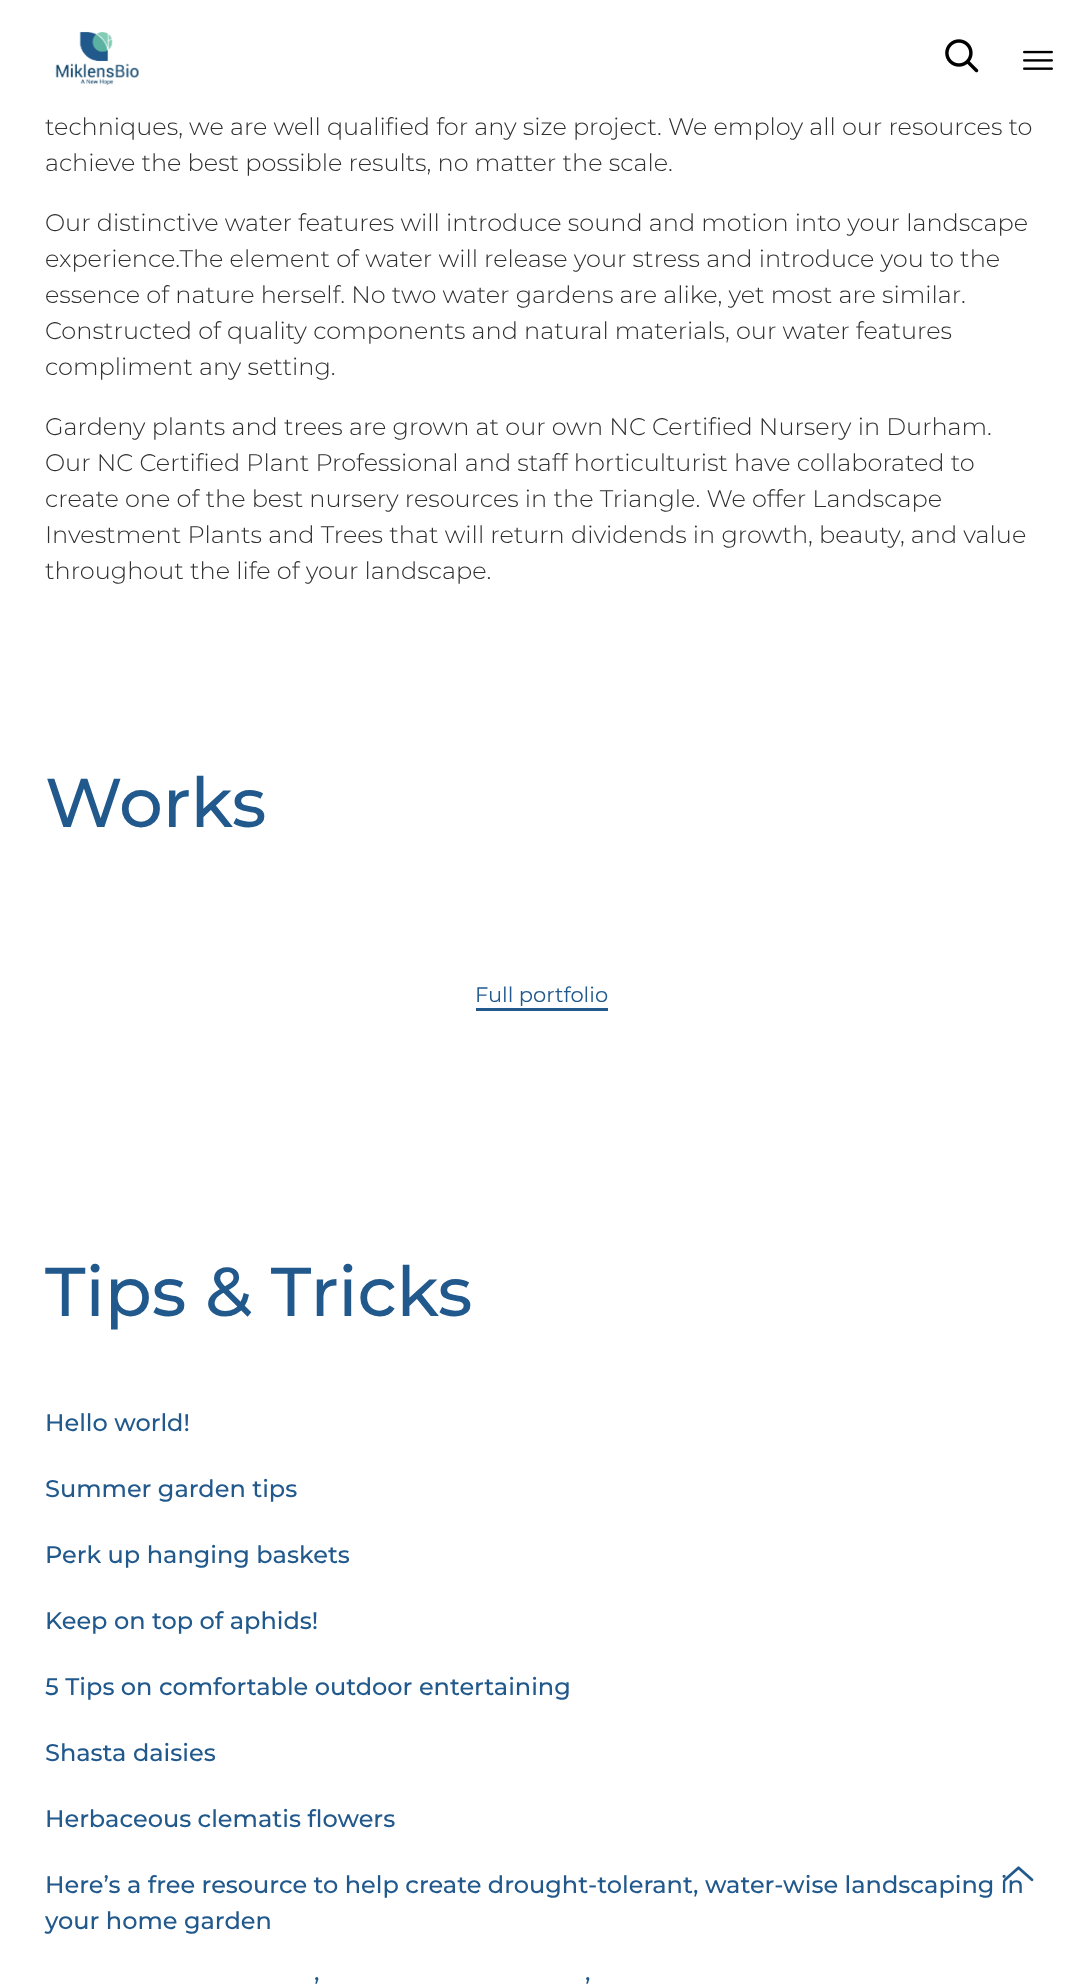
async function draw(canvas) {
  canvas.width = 1083;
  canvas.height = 1984;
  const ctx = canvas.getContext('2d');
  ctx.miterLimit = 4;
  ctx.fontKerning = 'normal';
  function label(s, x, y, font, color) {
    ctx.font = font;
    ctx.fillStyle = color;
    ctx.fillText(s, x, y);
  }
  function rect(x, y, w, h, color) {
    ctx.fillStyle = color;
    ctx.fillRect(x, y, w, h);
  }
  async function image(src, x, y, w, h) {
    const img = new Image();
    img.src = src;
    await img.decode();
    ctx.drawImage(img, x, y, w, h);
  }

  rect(0, 0, 1083, 1984, '#fff');
  await image('assets/img1.png', 55, 31, 85, 54);
  await image('assets/img2.png', 945, 39, 34, 34);
  await image('assets/img3.png', 1023, 50, 30, 20);
  label('techniques, we are well qualified for any size project. We employ all our resources to', 45, 135, '300 24px Montserrat', '#2f2f2f');
  label('achieve the best possible results, no matter the scale.', 45, 171, '300 24px Montserrat', '#2f2f2f');
  label('Our distinctive water features will introduce sound and motion into your landscape', 45, 231, '300 24px Montserrat', '#2f2f2f');
  label('experience.The element of water will release your stress and introduce you to the', 45, 267, '300 24px Montserrat', '#2f2f2f');
  label('essence of nature herself. No two water gardens are alike, yet most are similar.', 45, 303, '300 24px Montserrat', '#2f2f2f');
  label('Constructed of quality components and natural materials, our water features', 45, 339, '300 24px Montserrat', '#2f2f2f');
  label('compliment any setting.', 45, 375, '300 24px Montserrat', '#2f2f2f');
  label('Gardeny plants and trees are grown at our own NC Certified Nursery in Durham.', 45, 435, '300 24px Montserrat', '#2f2f2f');
  label('Our NC Certified Plant Professional and staff horticulturist have collaborated to', 45, 471, '300 24px Montserrat', '#2f2f2f');
  label('create one of the best nursery resources in the Triangle. We offer Landscape', 45, 507, '300 24px Montserrat', '#2f2f2f');
  label('Investment Plants and Trees that will return dividends in growth, beauty, and value', 45, 543, '300 24px Montserrat', '#2f2f2f');
  label('throughout the life of your landscape.', 45, 579, '300 24px Montserrat', '#2f2f2f');
  label('Works', 45, 827, '500 69px Montserrat', '#21598c');
  rect(476, 1008, 132, 3, '#21598c');
  label('Full portfolio', 475, 1002, '21px Montserrat', '#21598c');
  label('Tips & Tricks', 45, 1316, '500 69px Montserrat', '#21598c');
  label('Hello world!', 45, 1431, '500 24px Montserrat', '#21598c');
  label('Summer garden tips', 45, 1497, '500 24px Montserrat', '#21598c');
  label('Perk up hanging baskets', 45, 1563, '500 24px Montserrat', '#21598c');
  label('Keep on top of aphids!', 45, 1629, '500 24px Montserrat', '#21598c');
  label('5 Tips on comfortable outdoor entertaining', 45, 1695, '500 24px Montserrat', '#21598c');
  label('Shasta daisies', 45, 1761, '500 24px Montserrat', '#21598c');
  label('Herbaceous clematis flowers', 45, 1827, '500 24px Montserrat', '#21598c');
  label('Here’s a free resource to help create drought-tolerant, water-wise landscaping in', 45, 1893, '500 24px Montserrat', '#21598c');
  label('your home garden', 45, 1929, '500 24px Montserrat', '#21598c');
  label('’', 314, 1995, '500 24px Montserrat', '#21598c');
  label('’', 585, 1995, '500 24px Montserrat', '#21598c');
  await image('assets/img4.png', 1003, 1866, 31, 16);
}

draw(document.querySelector('canvas'));
